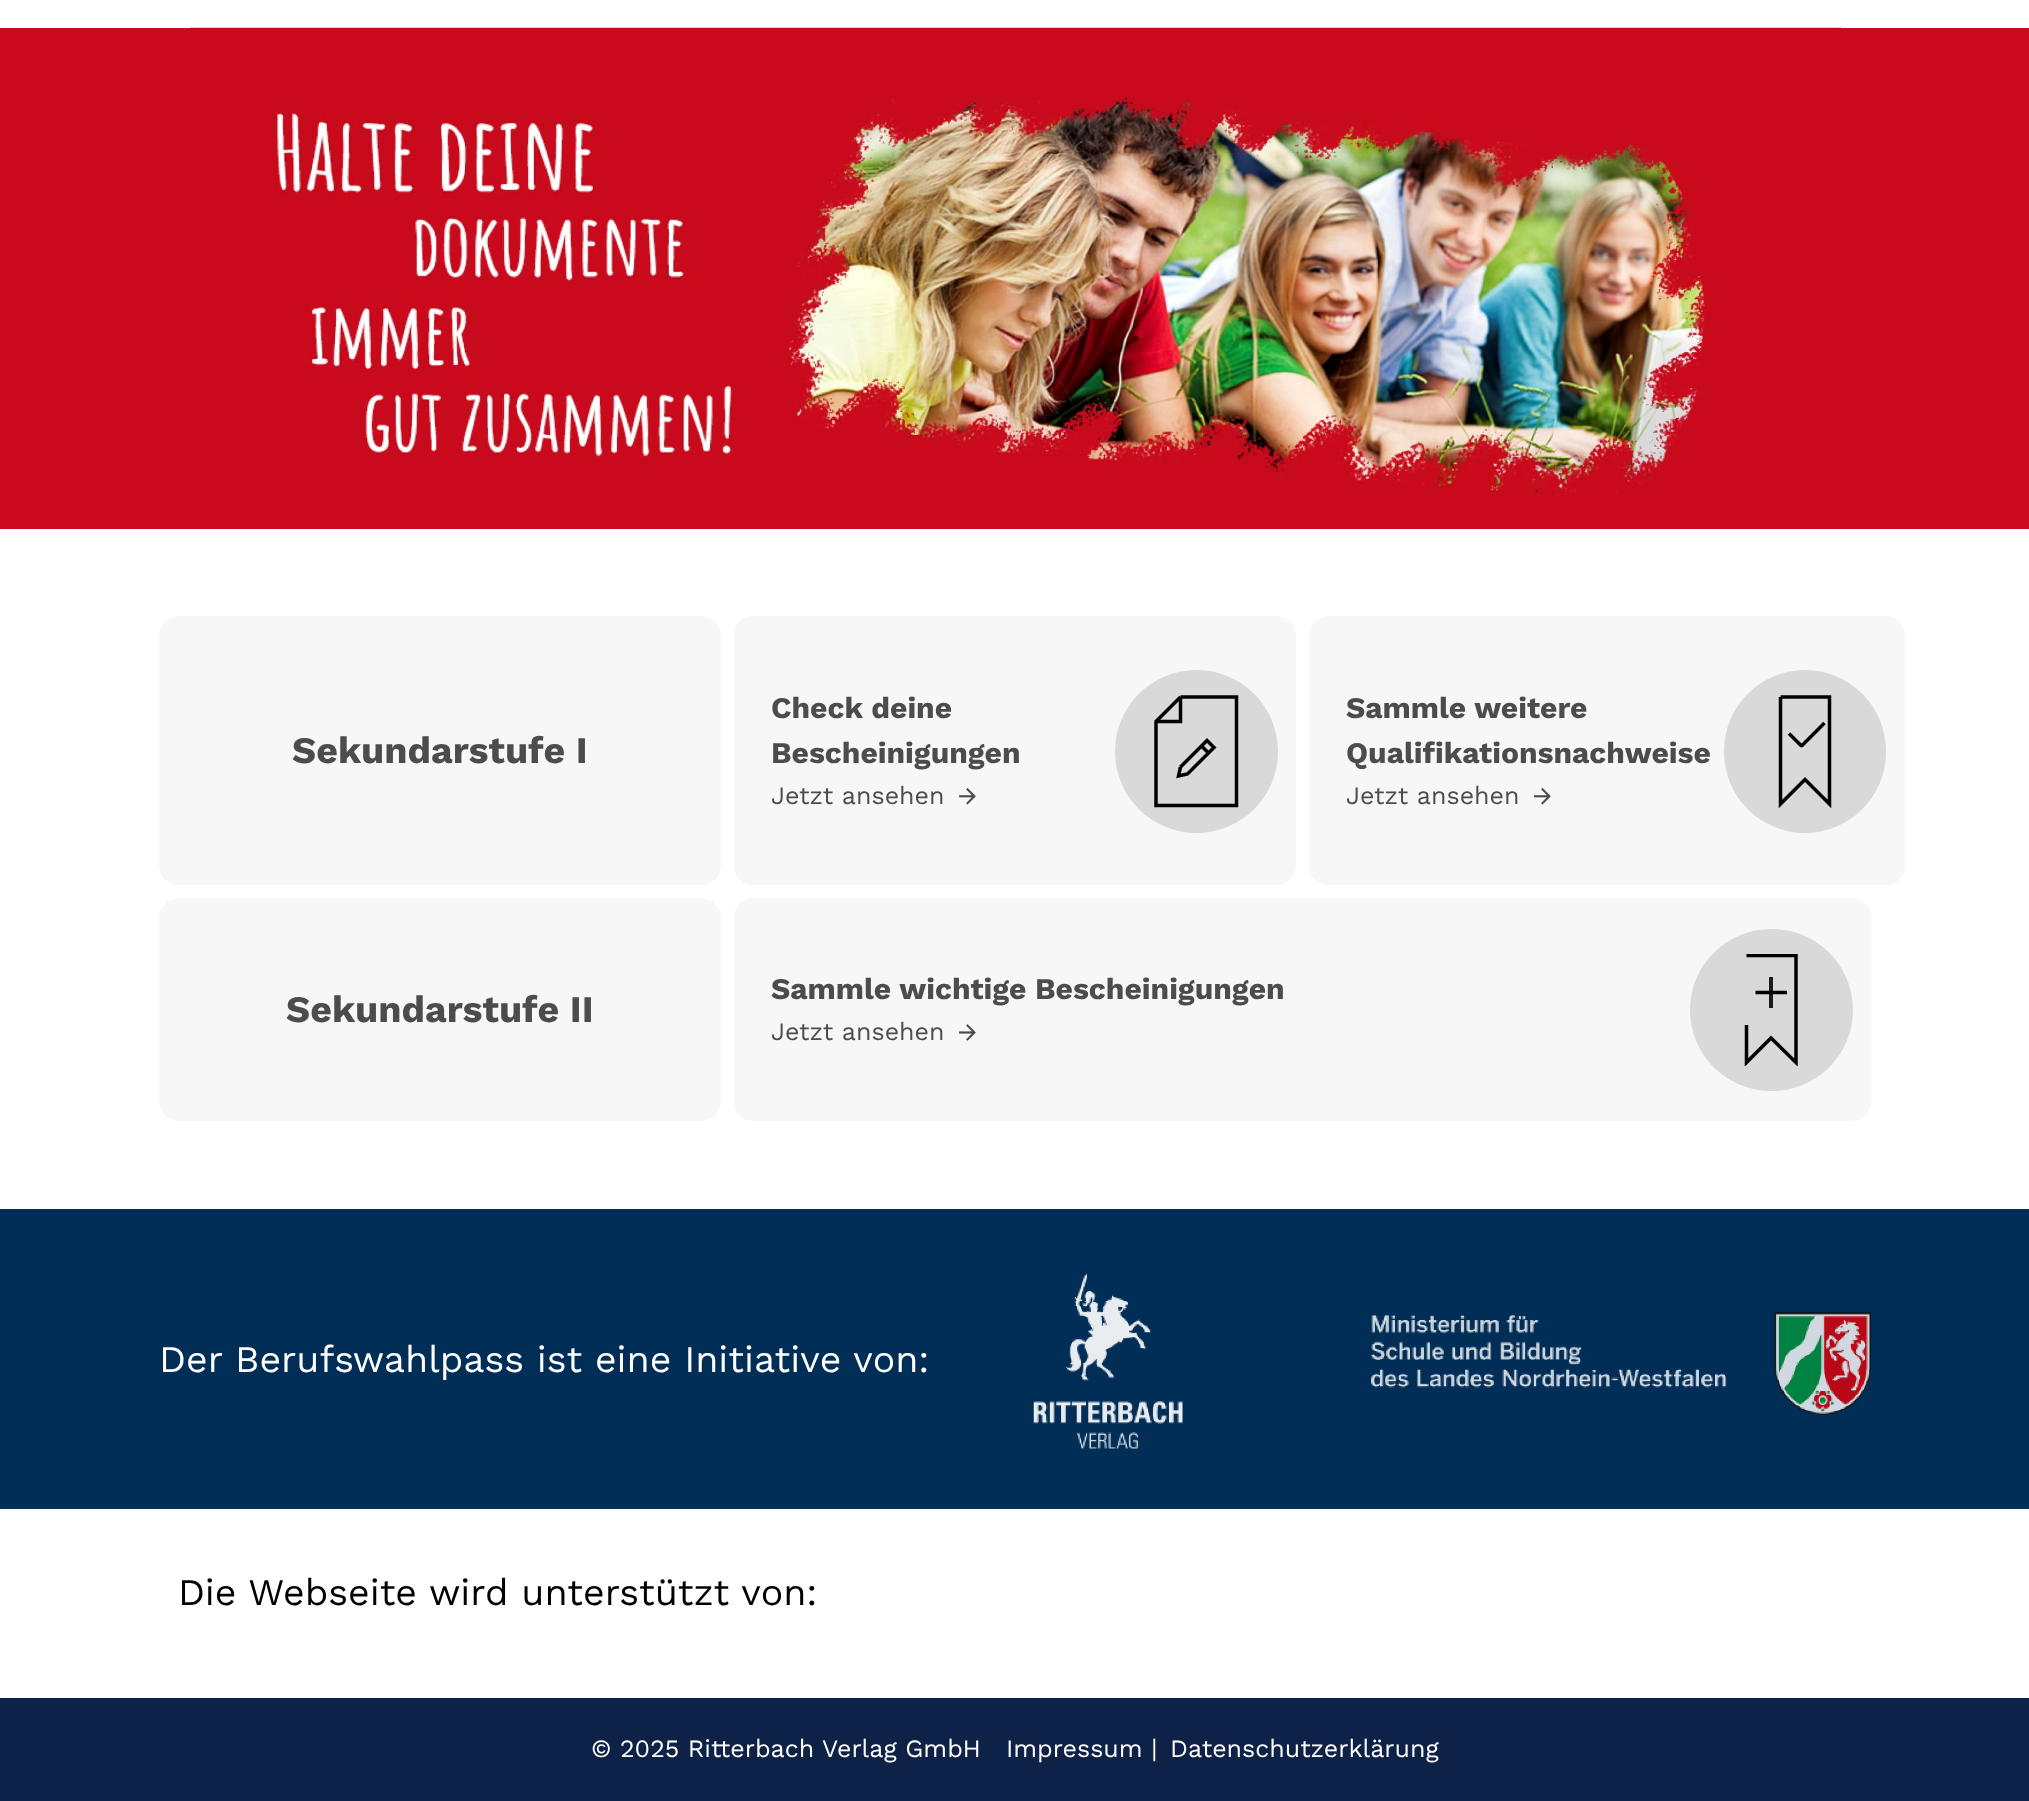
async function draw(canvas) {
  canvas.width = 2029;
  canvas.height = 1801;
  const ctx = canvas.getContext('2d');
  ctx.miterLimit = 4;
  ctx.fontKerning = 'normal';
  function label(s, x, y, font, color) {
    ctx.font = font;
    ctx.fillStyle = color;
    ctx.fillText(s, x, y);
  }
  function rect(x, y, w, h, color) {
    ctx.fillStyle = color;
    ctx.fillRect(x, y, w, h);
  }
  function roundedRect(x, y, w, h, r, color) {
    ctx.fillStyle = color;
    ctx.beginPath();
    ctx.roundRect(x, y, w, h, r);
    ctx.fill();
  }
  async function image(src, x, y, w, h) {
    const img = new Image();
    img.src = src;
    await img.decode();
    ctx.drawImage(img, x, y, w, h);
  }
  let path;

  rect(0, 0, 2029, 1801, '#fff');
  rect(0, 28, 2029, 501, '#c90a1d');
  await image('assets/img1.png', 190, 27, 1652, 469);
  roundedRect(159, 616, 562, 269, 20, '#f7f7f7');
  label('Sekundarstufe I', 292, 763, 'bold 37.5px Work Sans', '#4c4c4c');
  roundedRect(734, 616, 562, 269, 19, '#f7f7f7');
  label('Check deine', 771, 718, 'bold 30px Work Sans', '#4c4c4c');
  label('Bescheinigungen', 771, 763, 'bold 30px Work Sans', '#4c4c4c');
  ctx.fillStyle = '#d9d9d9';
  ctx.beginPath();
  ctx.arc(1196.5, 751.5, 81.5, 0, 2 * Math.PI);
  ctx.fill();
  path = new Path2D('M1180.5 697H1236.5V805.5H1156V721.5L1180.5 697');
  ctx.strokeStyle = '#000';
  ctx.lineWidth = 3.5;
  ctx.stroke(path);
  path = new Path2D('M1156 721.5H1180.5V697');
  ctx.stroke(path);
  path = new Path2D('M1180.5 767L1178.5 776L1187.5 774L1214 747.5L1207 740.5L1180.5 767M1208.5 753L1201.5 746');
  ctx.stroke(path);
  label('Jetzt ansehen', 771, 804, '25px Work Sans', '#4c4c4c');
  await image('assets/img2.png', 959, 788, 17, 17);
  roundedRect(1309, 616, 596, 269, 19, '#f7f7f7');
  label('Sammle weitere', 1346, 718, 'bold 30px Work Sans', '#4c4c4c');
  label('Qualifikationsnachweise', 1346, 763, 'bold 30px Work Sans', '#4c4c4c');
  roundedRect(1724, 670, 162, 163, 81, '#d9d9d9');
  path = new Path2D('M1780.5 697H1829.5V804L1805 779.5L1780.5 804V697');
  ctx.stroke(path);
  path = new Path2D('M1789 733.5L1801.5 746L1824.5 723');
  ctx.lineJoin = 'bevel';
  ctx.stroke(path);
  label('Jetzt ansehen', 1346, 804, '25px Work Sans', '#4c4c4c');
  await image('assets/img2.png', 1534, 788, 17, 17);
  roundedRect(159, 898, 562, 223, 20, '#f7f7f7');
  label('Sekundarstufe II', 286, 1022, 'bold 37.5px Work Sans', '#4c4c4c');
  roundedRect(734, 898, 1137, 223, 19, '#f7f7f7');
  label('Sammle wichtige Bescheinigungen', 771, 999, 'bold 30px Work Sans', '#4c4c4c');
  roundedRect(1690, 929, 163, 162, 81, '#d9d9d9');
  path = new Path2D('M1755.5 992.5H1787');
  ctx.lineJoin = 'miter';
  ctx.stroke(path);
  rect(1769, 977, 4, 31, '#000000e0');
  ctx.save();
  ctx.beginPath();
  ctx.rect(1715, 954, 113, 112);
  ctx.clip();
  path = new Path2D('M1746.5 955.5H1796V1062.5L1771 1038L1746.5 1062.5V1025');
  ctx.stroke(path);
  ctx.restore();
  label('Jetzt ansehen', 771, 1040, '25px Work Sans', '#4c4c4c');
  await image('assets/img3.png', 959, 1024, 17, 17);
  rect(0, 1698, 2029, 103, '#0e2248');
  rect(0, 1209, 2029, 300, '#012e57');
  label('Der Berufswahlpass ist eine Initiative von:', 159, 1372, '37.5px Work Sans', '#fefeff');
  await image('assets/img4.png', 1033, 1273, 150, 176);
  await image('assets/img5.png', 1371, 1312, 500, 103);
  label('Die Webseite wird unterstützt von:', 178, 1605, '37.5px Work Sans', '#010101');
  label('© 2025 Ritterbach Verlag GmbH', 591, 1757, '25px Work Sans', '#fefeff');
  label('Impressum |', 1006, 1757, '25px Work Sans', '#fefeff');
  label('Datenschutzerklärung', 1170, 1757, '25px Work Sans', '#fefeff');
}

draw(document.querySelector('canvas'));
